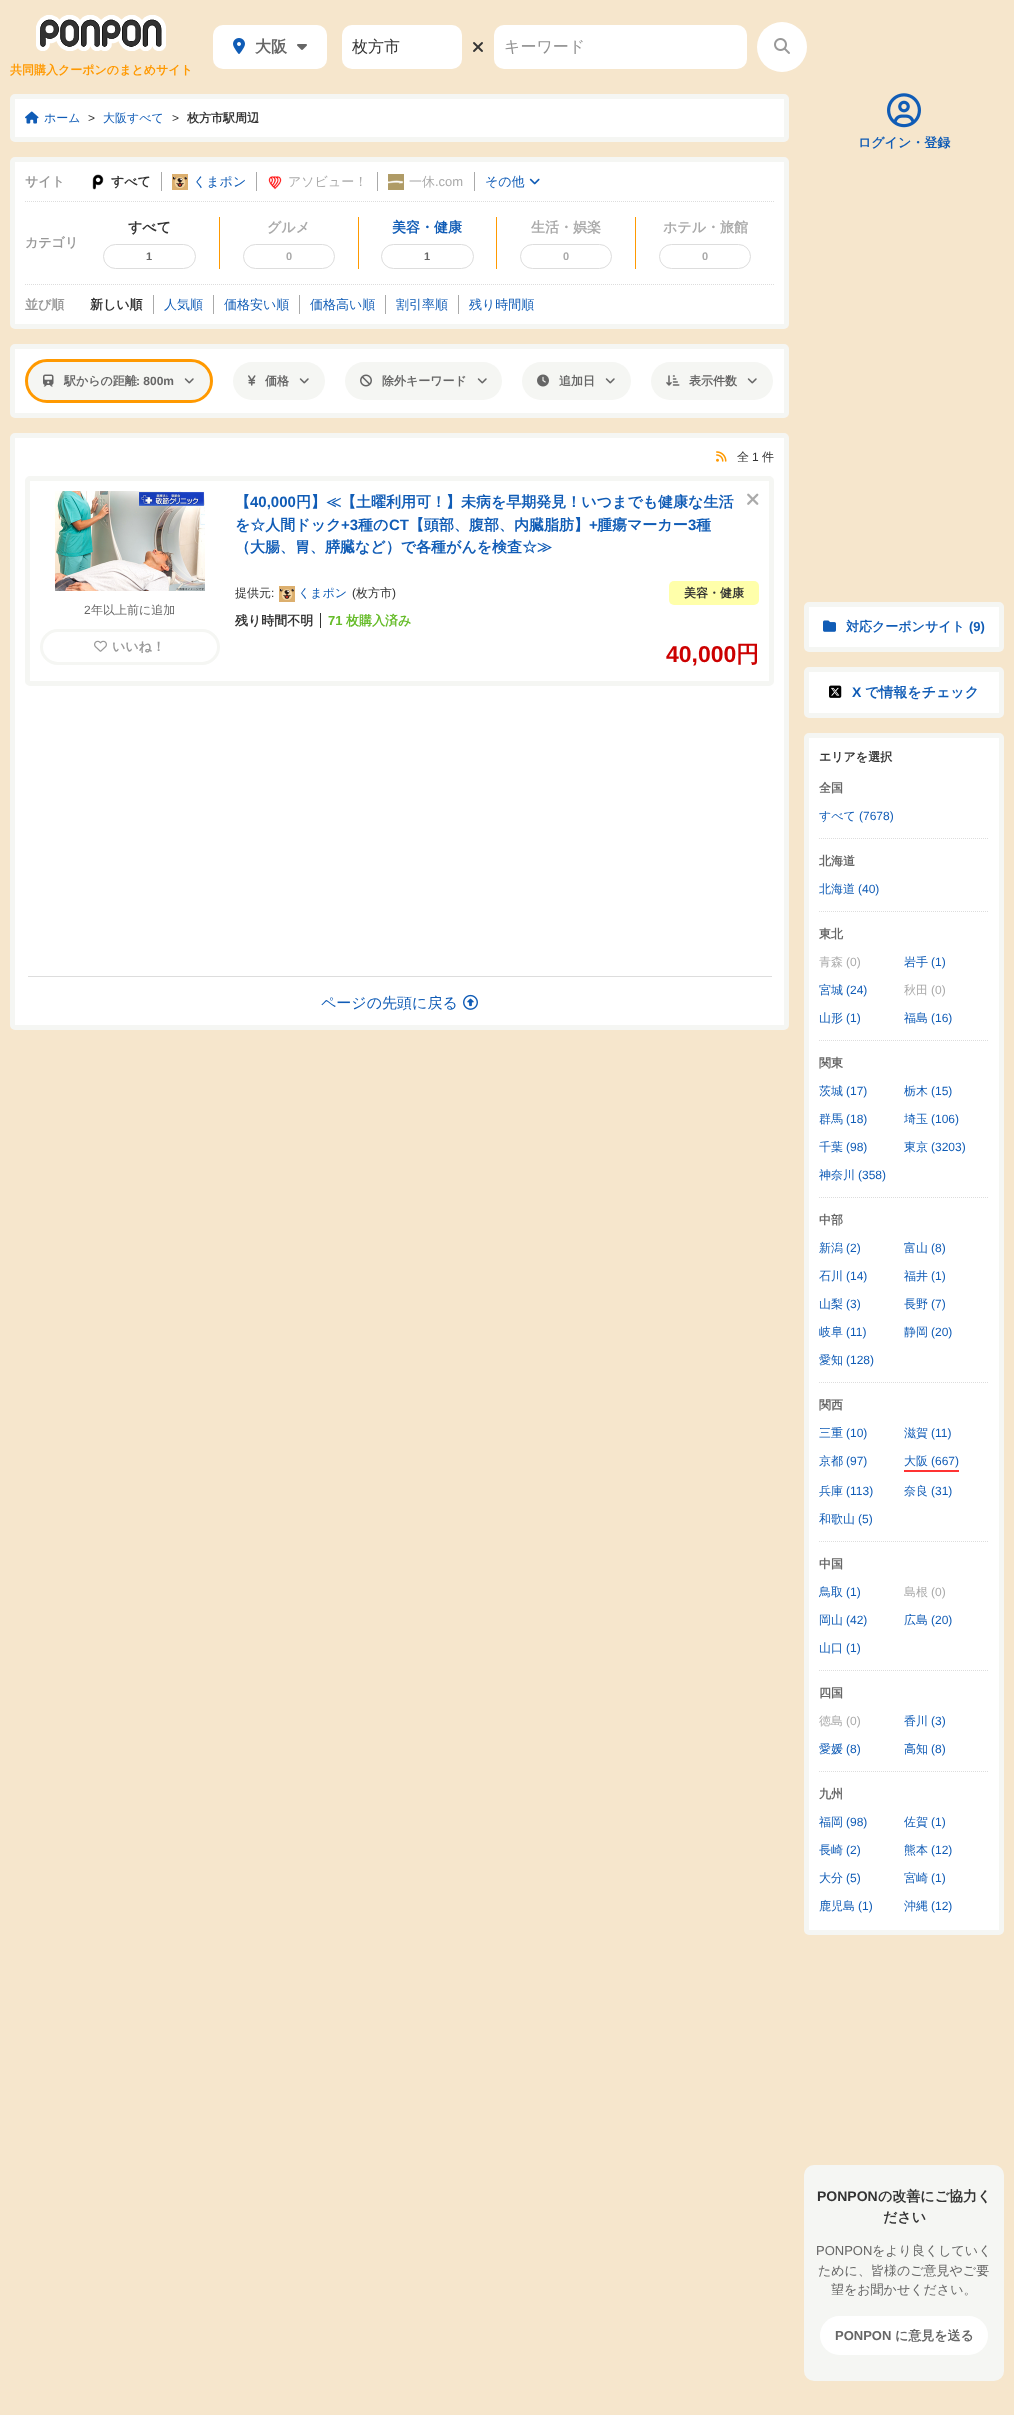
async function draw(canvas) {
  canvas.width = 1014;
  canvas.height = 2415;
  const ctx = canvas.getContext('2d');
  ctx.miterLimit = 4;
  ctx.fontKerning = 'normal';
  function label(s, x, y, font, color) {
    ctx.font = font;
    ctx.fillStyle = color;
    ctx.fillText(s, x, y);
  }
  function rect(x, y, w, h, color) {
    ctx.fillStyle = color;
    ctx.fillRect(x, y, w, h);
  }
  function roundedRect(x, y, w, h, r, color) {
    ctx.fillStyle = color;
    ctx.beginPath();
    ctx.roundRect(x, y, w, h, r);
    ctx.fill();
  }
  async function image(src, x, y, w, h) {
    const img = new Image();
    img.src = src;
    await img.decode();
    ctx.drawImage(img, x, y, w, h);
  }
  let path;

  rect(0, 0, 1014, 2415, '#f6e6cc');
  roundedRect(213, 25, 114, 44, 10, '#fff');
  await image('assets/img1.png', 233, 38, 12, 16);
  label('大阪', 255, 52, 'bold 16px WenQuanYi Zen Hei', '#666');
  await image('assets/img2.png', 297, 44, 10, 6);
  roundedRect(342, 25, 120, 44, 10, '#fff');
  label('枚方市', 352, 52, '500 16px WenQuanYi Zen Hei', '#333');
  await image('assets/img3.png', 473, 42, 10, 10);
  roundedRect(494, 25, 253, 44, 10, '#fff');
  label('キーワード', 504, 52, '500 16px WenQuanYi Zen Hei', '#919191');
  ctx.fillStyle = '#fff';
  ctx.beginPath();
  ctx.arc(782, 47, 25, 0, 2 * Math.PI);
  ctx.fill();
  await image('assets/img4.png', 774, 38, 16, 16);
  await image('assets/img5.png', 36, 15, 130, 36);
  label('共同購入クーポンのまとめサイト', 10, 74, 'bold 12px WenQuanYi Zen Hei', '#f90');
  ctx.fillStyle = '#fff';
  ctx.beginPath();
  ctx.roundRect(12.5, 96.5, 774, 43, 2.5);
  ctx.fill();
  ctx.strokeStyle = '#f5f6f3';
  ctx.lineWidth = 5;
  ctx.stroke();
  await image('assets/img6.png', 25, 111, 14, 13);
  label('ホーム', 44, 122, '500 12px WenQuanYi Zen Hei', '#105cb6');
  label('>', 88, 122, '12px Liberation Sans', '#333');
  label('大阪すべて', 103, 122, '500 12px WenQuanYi Zen Hei', '#105cb6');
  label('>', 172, 122, '12px Liberation Sans', '#333');
  label('枚方市駅周辺', 187, 122, 'bold 12px WenQuanYi Zen Hei', '#333');
  ctx.fillStyle = '#fff';
  ctx.beginPath();
  ctx.roundRect(12.5, 159.5, 774, 167, 2.5);
  ctx.fill();
  ctx.stroke();
  label('サイト', 25, 186, 'bold 13px WenQuanYi Zen Hei', '#999');
  await image('assets/img7.png', 92, 174, 12, 16);
  label('すべて', 111, 186, 'bold 13px WenQuanYi Zen Hei', '#333');
  rect(161, 172, 1, 19, '#aaa');
  await image('assets/img8.png', 172, 174, 16, 16);
  label('くまポン', 193, 186, '500 13px WenQuanYi Zen Hei', '#105cb6');
  rect(256, 172, 1, 19, '#aaa');
  await image('assets/img9.png', 268, 176, 14, 14);
  label('アソビュー！', 288, 186, '500 13px WenQuanYi Zen Hei', '#aaa');
  rect(377, 172, 1, 19, '#aaa');
  await image('assets/img10.png', 388, 174, 16, 16);
  label('一休', 409, 186, '500 13px WenQuanYi Zen Hei', '#aaa');
  label('.com', 435, 186, '13px Liberation Sans', '#aaa');
  rect(474, 172, 1, 19, '#aaa');
  label('その他', 485, 186, '500 13px WenQuanYi Zen Hei', '#105cb6');
  await image('assets/img11.png', 529, 178, 11, 7);
  path = new Path2D('M25 201.5H774');
  ctx.strokeStyle = '#ddd';
  ctx.lineWidth = 1;
  ctx.setLineDash([1, 1]);
  ctx.stroke(path);
  label('カテゴリ', 25, 247, 'bold 13px WenQuanYi Zen Hei', '#999');
  label('すべて', 128, 232, 'bold 14px WenQuanYi Zen Hei', '#333');
  ctx.beginPath();
  ctx.roundRect(103.5, 244.5, 92, 24, 12);
  ctx.setLineDash([]);
  ctx.stroke();
  label('1', 146, 260, 'bold 11px Liberation Sans', '#666');
  rect(219, 217, 1, 52, '#f90');
  label('グルメ', 267, 232, 'bold 14px WenQuanYi Zen Hei', '#aaa');
  ctx.beginPath();
  ctx.roundRect(243.5, 244.5, 91, 24, 12);
  ctx.stroke();
  label('0', 286, 260, 'bold 11px Liberation Sans', '#aaa');
  rect(358, 217, 1, 52, '#f90');
  label('美容・健康', 392, 232, 'bold 14px WenQuanYi Zen Hei', '#105cb6');
  ctx.beginPath();
  ctx.roundRect(381.5, 244.5, 92, 24, 12);
  ctx.stroke();
  label('1', 424, 260, 'bold 11px Liberation Sans', '#666');
  rect(496, 217, 1, 52, '#f90');
  label('生活・娯楽', 531, 232, 'bold 14px WenQuanYi Zen Hei', '#aaa');
  ctx.beginPath();
  ctx.roundRect(520.5, 244.5, 91, 24, 12);
  ctx.stroke();
  label('0', 563, 260, 'bold 11px Liberation Sans', '#aaa');
  rect(635, 217, 1, 52, '#f90');
  label('ホテル・旅館', 663, 232, 'bold 14px WenQuanYi Zen Hei', '#aaa');
  ctx.beginPath();
  ctx.roundRect(659.5, 244.5, 91, 24, 12);
  ctx.stroke();
  label('0', 702, 260, 'bold 11px Liberation Sans', '#aaa');
  path = new Path2D('M25 284.5H774');
  ctx.setLineDash([1, 1]);
  ctx.stroke(path);
  label('並び順', 25, 309, 'bold 13px WenQuanYi Zen Hei', '#999');
  label('新しい順', 90, 309, 'bold 13px WenQuanYi Zen Hei', '#333');
  rect(153, 295, 1, 19, '#aaa');
  label('人気順', 164, 309, '500 13px WenQuanYi Zen Hei', '#105cb6');
  rect(213, 295, 1, 19, '#aaa');
  label('価格安い順', 224, 309, '500 13px WenQuanYi Zen Hei', '#105cb6');
  rect(299, 295, 1, 19, '#aaa');
  label('価格高い順', 310, 309, '500 13px WenQuanYi Zen Hei', '#105cb6');
  rect(385, 295, 1, 19, '#aaa');
  label('割引率順', 396, 309, '500 13px WenQuanYi Zen Hei', '#105cb6');
  rect(458, 295, 1, 19, '#aaa');
  label('残り時間順', 469, 309, '500 13px WenQuanYi Zen Hei', '#105cb6');
  ctx.fillStyle = '#fff';
  ctx.beginPath();
  ctx.roundRect(12.5, 346.5, 774, 69, 2.5);
  ctx.fill();
  ctx.strokeStyle = '#f5f6f3';
  ctx.lineWidth = 5;
  ctx.setLineDash([]);
  ctx.stroke();
  ctx.fillStyle = '#f5f6f3';
  ctx.beginPath();
  ctx.roundRect(26.5, 360.5, 185, 41, 20.5);
  ctx.fill();
  ctx.strokeStyle = '#f90';
  ctx.lineWidth = 3;
  ctx.stroke();
  await image('assets/img12.png', 43, 374, 11, 13);
  label('駅からの距離', 64, 385, 'bold 12px WenQuanYi Zen Hei', '#666');
  label(': 800m', 136, 385, 'bold 12px Liberation Sans', '#666');
  await image('assets/img13.png', 184, 378, 10, 6);
  roundedRect(233, 362, 92, 38, 19, '#f5f6f3');
  await image('assets/img14.png', 248, 375, 8, 11);
  label('価格', 265, 385, 'bold 12px WenQuanYi Zen Hei', '#666');
  await image('assets/img13.png', 299, 378, 10, 6);
  roundedRect(345, 362, 157, 38, 19, '#f5f6f3');
  await image('assets/img15.png', 360, 374, 12, 13);
  label('除外キーワード', 382, 385, 'bold 12px WenQuanYi Zen Hei', '#666');
  await image('assets/img13.png', 477, 378, 10, 6);
  roundedRect(522, 362, 109, 38, 19, '#f5f6f3');
  await image('assets/img16.png', 537, 374, 12, 13);
  label('追加日', 559, 385, 'bold 12px WenQuanYi Zen Hei', '#666');
  await image('assets/img13.png', 605, 378, 10, 6);
  roundedRect(651, 362, 122, 38, 19, '#f5f6f3');
  await image('assets/img17.png', 666, 375, 14, 11);
  label('表示件数', 689, 385, 'bold 12px WenQuanYi Zen Hei', '#666');
  await image('assets/img13.png', 747, 378, 10, 6);
  ctx.fillStyle = '#fff';
  ctx.beginPath();
  ctx.roundRect(12.5, 435.5, 774, 592, 2.5);
  ctx.fill();
  ctx.strokeStyle = '#f5f6f3';
  ctx.lineWidth = 5;
  ctx.stroke();
  await image('assets/img18.png', 716, 451, 11, 11);
  label('全', 737, 461, '500 12px WenQuanYi Zen Hei', '#333');
  label('1', 752, 461, '12px Liberation Sans', '#333');
  label('件', 762, 461, '500 12px WenQuanYi Zen Hei', '#333');
  ctx.beginPath();
  ctx.roundRect(27.5, 478.5, 744, 205, 2.5);
  ctx.stroke();
  await image('assets/img19.png', 55, 491, 150, 100);
  await image('assets/img20.png', 747, 493, 12, 12);
  label('2', 84, 614, '12px Liberation Sans', '#666');
  label('年以上前に追加', 91, 614, '500 12px WenQuanYi Zen Hei', '#666');
  ctx.beginPath();
  ctx.roundRect(41.5, 630.5, 177, 33, 16.5);
  ctx.lineWidth = 3;
  ctx.stroke();
  await image('assets/img21.png', 94, 640, 13, 12);
  label('いいね！', 112, 651, 'bold 13px WenQuanYi Zen Hei', '#999');
  label('【', 235, 507, 'bold 15px WenQuanYi Zen Hei', '#105cb6');
  label('40,000', 250, 507, 'bold 15px Liberation Sans', '#105cb6');
  label('円】≪【土曜利用可！】未病を早期発見！いつまでも健康な生活', 296, 507, 'bold 15px WenQuanYi Zen Hei', '#105cb6');
  label('を☆人間ドック', 235, 530, 'bold 15px WenQuanYi Zen Hei', '#105cb6');
  label('+3', 341, 530, 'bold 15px Liberation Sans', '#105cb6');
  label('種の', 358, 530, 'bold 15px WenQuanYi Zen Hei', '#105cb6');
  label('CT', 389, 530, 'bold 15px Liberation Sans', '#105cb6');
  label('【頭部、腹部、内臓脂肪】', 409, 530, 'bold 15px WenQuanYi Zen Hei', '#105cb6');
  label('+', 589, 530, 'bold 15px Liberation Sans', '#105cb6');
  label('腫瘍マーカー', 597, 530, 'bold 15px WenQuanYi Zen Hei', '#105cb6');
  label('3', 688, 530, 'bold 15px Liberation Sans', '#105cb6');
  label('種', 696, 530, 'bold 15px WenQuanYi Zen Hei', '#105cb6');
  label('（大腸、胃、膵臓など）で各種がんを検査☆≫', 235, 552, 'bold 15px WenQuanYi Zen Hei', '#105cb6');
  label('提供元', 235, 597, '500 12px WenQuanYi Zen Hei', '#333');
  label(':', 271, 597, '12px Liberation Sans', '#333');
  await image('assets/img8.png', 279, 586, 16, 16);
  label('くまポン', 298, 597, '500 12px WenQuanYi Zen Hei', '#105cb6');
  label('(', 352, 597, '12px Liberation Sans', '#333');
  label('枚方市', 356, 597, '500 12px WenQuanYi Zen Hei', '#333');
  label(')', 392, 597, '12px Liberation Sans', '#333');
  roundedRect(669, 581, 90, 24, 5, '#ffa');
  label('美容・健康', 684, 597, 'bold 12px WenQuanYi Zen Hei', '#333');
  label('残り時間不明', 235, 625, 'bold 13px WenQuanYi Zen Hei', '#333');
  rect(320, 613, 1, 15, '#333');
  label('71', 328, 625, 'bold 13px Liberation Sans', '#66bc29');
  label('枚購入済み', 346, 625, 'bold 13px WenQuanYi Zen Hei', '#66bc29');
  label('40,000', 666, 662, 'bold 23px Liberation Sans', '#c00');
  label('円', 736, 662, 'bold 23px WenQuanYi Zen Hei', '#c00');
  rect(28, 976, 744, 1, '#ddd');
  label('ページの先頭に戻る', 321, 1008, '500 15px WenQuanYi Zen Hei', '#105cb6');
  await image('assets/img22.png', 463, 994, 15, 16);
  await image('assets/img23.png', 887, 93, 34, 35);
  label('ログイン・登録', 858, 147, 'bold 13px WenQuanYi Zen Hei', '#105cb6');
  ctx.fillStyle = '#fff';
  ctx.beginPath();
  ctx.roundRect(806.5, 604.5, 195, 45, 2.5);
  ctx.fill();
  ctx.lineWidth = 5;
  ctx.stroke();
  await image('assets/img24.png', 823, 620, 13, 12);
  label('対応クーポンサイト', 846, 631, 'bold 13px WenQuanYi Zen Hei', '#105cb6');
  label('(9)', 969, 631, 'bold 13px Liberation Sans', '#105cb6');
  ctx.fillStyle = '#fff';
  ctx.beginPath();
  ctx.roundRect(806.5, 669.5, 195, 46, 2.5);
  ctx.fill();
  ctx.stroke();
  await image('assets/img25.png', 829, 685, 13, 13);
  label('X', 852, 697, 'bold 14px Liberation Sans', '#105cb6');
  label('で情報をチェック', 865, 697, 'bold 14px WenQuanYi Zen Hei', '#105cb6');
  ctx.fillStyle = '#fff';
  ctx.beginPath();
  ctx.roundRect(806.5, 735.5, 195, 1197, 2.5);
  ctx.fill();
  ctx.stroke();
  label('エリアを選択', 819, 761, 'bold 12px WenQuanYi Zen Hei', '#333');
  label('全国', 819, 792, 'bold 12px WenQuanYi Zen Hei', '#666');
  label('すべて', 819, 820, '500 12px WenQuanYi Zen Hei', '#105cb6');
  label('(7678)', 859, 820, '12px Liberation Sans', '#105cb6');
  path = new Path2D('M819 838.5H989');
  ctx.strokeStyle = '#ddd';
  ctx.lineWidth = 1;
  ctx.setLineDash([1, 1]);
  ctx.stroke(path);
  label('北海道', 819, 865, 'bold 12px WenQuanYi Zen Hei', '#666');
  label('北海道', 819, 893, '500 12px WenQuanYi Zen Hei', '#105cb6');
  label('(40)', 858, 893, '12px Liberation Sans', '#105cb6');
  path = new Path2D('M819 911.5H989');
  ctx.stroke(path);
  label('東北', 819, 938, 'bold 12px WenQuanYi Zen Hei', '#666');
  label('青森', 819, 966, '500 12px WenQuanYi Zen Hei', '#aaa');
  label('(0)', 846, 966, '12px Liberation Sans', '#aaa');
  label('岩手', 904, 966, '500 12px WenQuanYi Zen Hei', '#105cb6');
  label('(1)', 931, 966, '12px Liberation Sans', '#105cb6');
  label('宮城', 819, 994, '500 12px WenQuanYi Zen Hei', '#105cb6');
  label('(24)', 846, 994, '12px Liberation Sans', '#105cb6');
  label('秋田', 904, 994, '500 12px WenQuanYi Zen Hei', '#aaa');
  label('(0)', 931, 994, '12px Liberation Sans', '#aaa');
  label('山形', 819, 1022, '500 12px WenQuanYi Zen Hei', '#105cb6');
  label('(1)', 846, 1022, '12px Liberation Sans', '#105cb6');
  label('福島', 904, 1022, '500 12px WenQuanYi Zen Hei', '#105cb6');
  label('(16)', 931, 1022, '12px Liberation Sans', '#105cb6');
  path = new Path2D('M819 1040.5H989');
  ctx.stroke(path);
  label('関東', 819, 1067, 'bold 12px WenQuanYi Zen Hei', '#666');
  label('茨城', 819, 1095, '500 12px WenQuanYi Zen Hei', '#105cb6');
  label('(17)', 846, 1095, '12px Liberation Sans', '#105cb6');
  label('栃木', 904, 1095, '500 12px WenQuanYi Zen Hei', '#105cb6');
  label('(15)', 931, 1095, '12px Liberation Sans', '#105cb6');
  label('群馬', 819, 1123, '500 12px WenQuanYi Zen Hei', '#105cb6');
  label('(18)', 846, 1123, '12px Liberation Sans', '#105cb6');
  label('埼玉', 904, 1123, '500 12px WenQuanYi Zen Hei', '#105cb6');
  label('(106)', 931, 1123, '12px Liberation Sans', '#105cb6');
  label('千葉', 819, 1151, '500 12px WenQuanYi Zen Hei', '#105cb6');
  label('(98)', 846, 1151, '12px Liberation Sans', '#105cb6');
  label('東京', 904, 1151, '500 12px WenQuanYi Zen Hei', '#105cb6');
  label('(3203)', 931, 1151, '12px Liberation Sans', '#105cb6');
  label('神奈川', 819, 1179, '500 12px WenQuanYi Zen Hei', '#105cb6');
  label('(358)', 858, 1179, '12px Liberation Sans', '#105cb6');
  path = new Path2D('M819 1197.5H989');
  ctx.stroke(path);
  label('中部', 819, 1224, 'bold 12px WenQuanYi Zen Hei', '#666');
  label('新潟', 819, 1252, '500 12px WenQuanYi Zen Hei', '#105cb6');
  label('(2)', 846, 1252, '12px Liberation Sans', '#105cb6');
  label('富山', 904, 1252, '500 12px WenQuanYi Zen Hei', '#105cb6');
  label('(8)', 931, 1252, '12px Liberation Sans', '#105cb6');
  label('石川', 819, 1280, '500 12px WenQuanYi Zen Hei', '#105cb6');
  label('(14)', 846, 1280, '12px Liberation Sans', '#105cb6');
  label('福井', 904, 1280, '500 12px WenQuanYi Zen Hei', '#105cb6');
  label('(1)', 931, 1280, '12px Liberation Sans', '#105cb6');
  label('山梨', 819, 1308, '500 12px WenQuanYi Zen Hei', '#105cb6');
  label('(3)', 846, 1308, '12px Liberation Sans', '#105cb6');
  label('長野', 904, 1308, '500 12px WenQuanYi Zen Hei', '#105cb6');
  label('(7)', 931, 1308, '12px Liberation Sans', '#105cb6');
  label('岐阜', 819, 1336, '500 12px WenQuanYi Zen Hei', '#105cb6');
  label('(11)', 846, 1336, '12px Liberation Sans', '#105cb6');
  label('静岡', 904, 1336, '500 12px WenQuanYi Zen Hei', '#105cb6');
  label('(20)', 931, 1336, '12px Liberation Sans', '#105cb6');
  label('愛知', 819, 1364, '500 12px WenQuanYi Zen Hei', '#105cb6');
  label('(128)', 846, 1364, '12px Liberation Sans', '#105cb6');
  path = new Path2D('M819 1382.5H989');
  ctx.stroke(path);
  label('関西', 819, 1409, 'bold 12px WenQuanYi Zen Hei', '#666');
  label('三重', 819, 1437, '500 12px WenQuanYi Zen Hei', '#105cb6');
  label('(10)', 846, 1437, '12px Liberation Sans', '#105cb6');
  label('滋賀', 904, 1437, '500 12px WenQuanYi Zen Hei', '#105cb6');
  label('(11)', 931, 1437, '12px Liberation Sans', '#105cb6');
  label('京都', 819, 1465, '500 12px WenQuanYi Zen Hei', '#105cb6');
  label('(97)', 846, 1465, '12px Liberation Sans', '#105cb6');
  rect(904, 1470, 55, 2, '#f33');
  label('大阪', 904, 1465, '500 12px WenQuanYi Zen Hei', '#105cb6');
  label('(667)', 931, 1465, '12px Liberation Sans', '#105cb6');
  label('兵庫', 819, 1495, '500 12px WenQuanYi Zen Hei', '#105cb6');
  label('(113)', 846, 1495, '12px Liberation Sans', '#105cb6');
  label('奈良', 904, 1495, '500 12px WenQuanYi Zen Hei', '#105cb6');
  label('(31)', 931, 1495, '12px Liberation Sans', '#105cb6');
  label('和歌山', 819, 1523, '500 12px WenQuanYi Zen Hei', '#105cb6');
  label('(5)', 858, 1523, '12px Liberation Sans', '#105cb6');
  path = new Path2D('M819 1541.5H989');
  ctx.stroke(path);
  label('中国', 819, 1568, 'bold 12px WenQuanYi Zen Hei', '#666');
  label('鳥取', 819, 1596, '500 12px WenQuanYi Zen Hei', '#105cb6');
  label('(1)', 846, 1596, '12px Liberation Sans', '#105cb6');
  label('島根', 904, 1596, '500 12px WenQuanYi Zen Hei', '#aaa');
  label('(0)', 931, 1596, '12px Liberation Sans', '#aaa');
  label('岡山', 819, 1624, '500 12px WenQuanYi Zen Hei', '#105cb6');
  label('(42)', 846, 1624, '12px Liberation Sans', '#105cb6');
  label('広島', 904, 1624, '500 12px WenQuanYi Zen Hei', '#105cb6');
  label('(20)', 931, 1624, '12px Liberation Sans', '#105cb6');
  label('山口', 819, 1652, '500 12px WenQuanYi Zen Hei', '#105cb6');
  label('(1)', 846, 1652, '12px Liberation Sans', '#105cb6');
  path = new Path2D('M819 1670.5H989');
  ctx.stroke(path);
  label('四国', 819, 1697, 'bold 12px WenQuanYi Zen Hei', '#666');
  label('徳島', 819, 1725, '500 12px WenQuanYi Zen Hei', '#aaa');
  label('(0)', 846, 1725, '12px Liberation Sans', '#aaa');
  label('香川', 904, 1725, '500 12px WenQuanYi Zen Hei', '#105cb6');
  label('(3)', 931, 1725, '12px Liberation Sans', '#105cb6');
  label('愛媛', 819, 1753, '500 12px WenQuanYi Zen Hei', '#105cb6');
  label('(8)', 846, 1753, '12px Liberation Sans', '#105cb6');
  label('高知', 904, 1753, '500 12px WenQuanYi Zen Hei', '#105cb6');
  label('(8)', 931, 1753, '12px Liberation Sans', '#105cb6');
  path = new Path2D('M819 1771.5H989');
  ctx.stroke(path);
  label('九州', 819, 1798, 'bold 12px WenQuanYi Zen Hei', '#666');
  label('福岡', 819, 1826, '500 12px WenQuanYi Zen Hei', '#105cb6');
  label('(98)', 846, 1826, '12px Liberation Sans', '#105cb6');
  label('佐賀', 904, 1826, '500 12px WenQuanYi Zen Hei', '#105cb6');
  label('(1)', 931, 1826, '12px Liberation Sans', '#105cb6');
  label('長崎', 819, 1854, '500 12px WenQuanYi Zen Hei', '#105cb6');
  label('(2)', 846, 1854, '12px Liberation Sans', '#105cb6');
  label('熊本', 904, 1854, '500 12px WenQuanYi Zen Hei', '#105cb6');
  label('(12)', 931, 1854, '12px Liberation Sans', '#105cb6');
  label('大分', 819, 1882, '500 12px WenQuanYi Zen Hei', '#105cb6');
  label('(5)', 846, 1882, '12px Liberation Sans', '#105cb6');
  label('宮崎', 904, 1882, '500 12px WenQuanYi Zen Hei', '#105cb6');
  label('(1)', 931, 1882, '12px Liberation Sans', '#105cb6');
  label('鹿児島', 819, 1910, '500 12px WenQuanYi Zen Hei', '#105cb6');
  label('(1)', 858, 1910, '12px Liberation Sans', '#105cb6');
  label('沖縄', 904, 1910, '500 12px WenQuanYi Zen Hei', '#105cb6');
  label('(12)', 931, 1910, '12px Liberation Sans', '#105cb6');
  roundedRect(804, 2165, 200, 216, 10, '#f5f6f3');
  label('PONPON', 817, 2201, 'bold 14px Liberation Sans', '#333');
  label('の改善にご協力く', 878, 2201, 'bold 14px WenQuanYi Zen Hei', '#333');
  label('ださい', 883, 2222, 'bold 14px WenQuanYi Zen Hei', '#333');
  label('PONPON', 816, 2255, '13px Liberation Sans', '#666');
  label('をより良くしていく', 872, 2255, '500 13px WenQuanYi Zen Hei', '#666');
  label('ために、皆様のご意見やご要', 818, 2275, '500 13px WenQuanYi Zen Hei', '#666');
  label('望をお聞かせください。', 831, 2294, '500 13px WenQuanYi Zen Hei', '#666');
  roundedRect(820, 2316, 168, 39, 19.5, '#fff');
  label('PONPON', 835, 2340, 'bold 13px Liberation Sans', '#666');
  label('に意見を送る', 895, 2340, 'bold 13px WenQuanYi Zen Hei', '#666');
}

draw(document.querySelector('canvas'));
